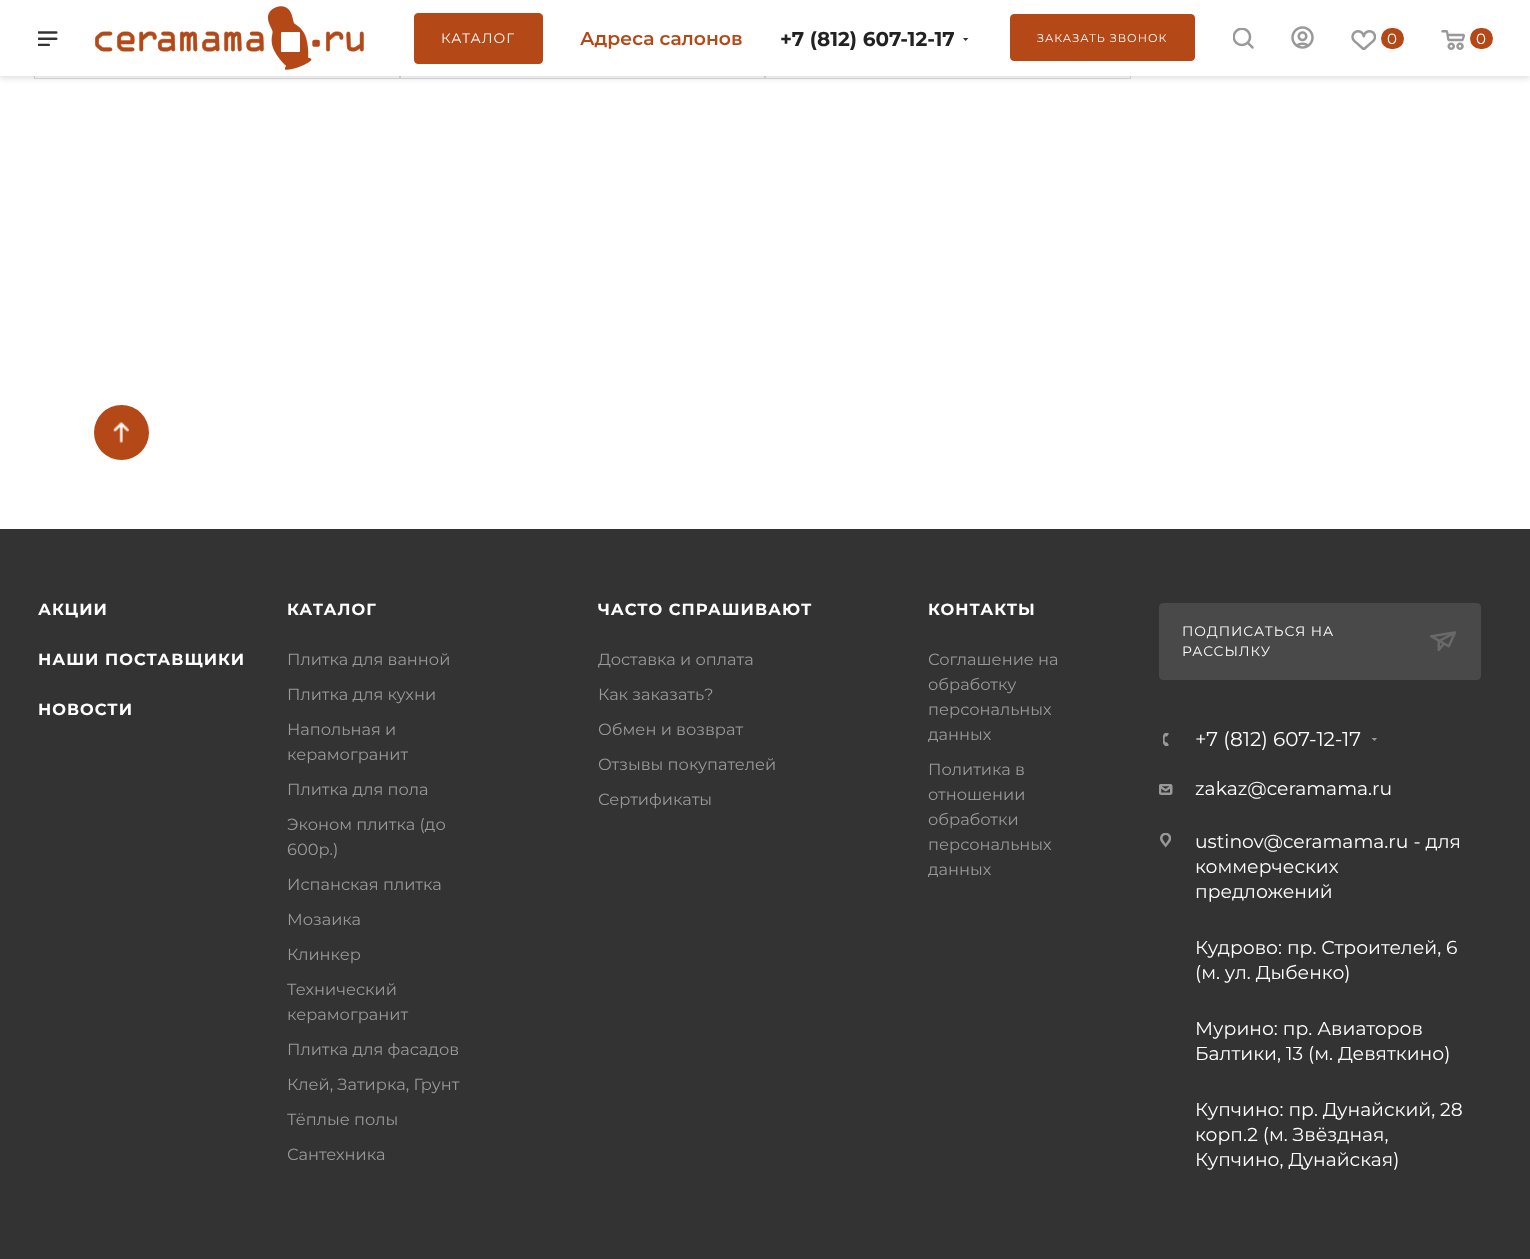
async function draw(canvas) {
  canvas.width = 1530;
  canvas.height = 1259;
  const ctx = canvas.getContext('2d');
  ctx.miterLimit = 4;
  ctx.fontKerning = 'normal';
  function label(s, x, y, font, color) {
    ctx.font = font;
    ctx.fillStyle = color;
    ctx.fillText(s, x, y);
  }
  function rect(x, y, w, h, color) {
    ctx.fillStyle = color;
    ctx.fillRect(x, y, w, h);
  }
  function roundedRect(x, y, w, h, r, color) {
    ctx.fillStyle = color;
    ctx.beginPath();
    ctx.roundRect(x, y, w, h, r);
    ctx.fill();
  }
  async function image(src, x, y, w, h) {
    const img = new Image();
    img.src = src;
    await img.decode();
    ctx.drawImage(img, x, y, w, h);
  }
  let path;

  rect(0, 0, 1530, 1259, '#fff');
  ctx.strokeStyle = '#ddd';
  ctx.strokeRect(34.5, -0.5, 365, 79);
  ctx.strokeRect(400.5, -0.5, 364, 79);
  ctx.strokeRect(765.5, -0.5, 365, 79);
  ctx.fillStyle = '#00000024';
  ctx.filter = 'blur(3px)';
  ctx.beginPath();
  ctx.rect(0, 1, 1530, 77);
  ctx.fill();
  ctx.filter = 'none';
  rect(0, 0, 1530, 76, '#fff');
  await image('assets/img1.png', 38, 31, 20, 15);
  await image('assets/img2.png', 95, 6, 269, 64);
  ctx.fillStyle = '#b54817';
  ctx.beginPath();
  ctx.roundRect(414.5, 13.5, 128, 50, 3.5);
  ctx.fill();
  ctx.strokeStyle = '#b54817';
  ctx.stroke();
  ctx.letterSpacing = '1px';
  label('КАТАЛОГ', 441, 43, '13.75px Montserrat', '#fff');
  ctx.letterSpacing = '0px';
  label('Адреса салонов', 580, 45, '600 18.75px Montserrat', '#b54817');
  label('+7 (812) 607-12-17', 780, 46, 'bold 20px Montserrat', '#222');
  ctx.save();
  ctx.beginPath();
  ctx.rect(963, 38, 6, 4);
  ctx.clip();
  ctx.fillStyle = '#333';
  path = new Path2D('M962.5 37.5H969L965.5 41Z');
  ctx.fill(path, 'evenodd');
  ctx.restore();
  ctx.fillStyle = '#b54817';
  ctx.beginPath();
  ctx.roundRect(1010.5, 14.5, 184, 46, 3.5);
  ctx.fill();
  ctx.stroke();
  ctx.letterSpacing = '1px';
  label('ЗАКАЗАТЬ ЗВОНОК', 1037, 42, '11.25px Montserrat', '#fff');
  await image('assets/img3.png', 1233, 28, 21, 21);
  await image('assets/img4.png', 1291, 26, 23, 23);
  await image('assets/img5.png', 1351, 30, 25, 20);
  roundedRect(1381, 28, 23, 21, 10.5, '#b54817');
  ctx.letterSpacing = '0px';
  label('0', 1387, 44, '15px Montserrat', '#fff');
  await image('assets/img6.png', 1441, 30, 24, 20);
  roundedRect(1470, 28, 23, 21, 10.5, '#b54817');
  label('0', 1476, 44, '15px Montserrat', '#fff');
  ctx.fillStyle = '#b54817';
  ctx.beginPath();
  ctx.arc(121.5, 432.5, 27.5, 0, 2 * Math.PI);
  ctx.fill();
  await image('assets/img7.png', 113, 422, 16, 21);
  rect(0, 529, 1530, 730, '#333');
  ctx.letterSpacing = '1px';
  label('АКЦИИ', 38, 615, 'bold 16.25px Montserrat', '#fff');
  label('НАШИ ПОСТАВЩИКИ', 38, 665, 'bold 16.25px Montserrat', '#fff');
  label('НОВОСТИ', 38, 715, 'bold 16.25px Montserrat', '#fff');
  label('КАТАЛОГ', 287, 615, 'bold 16.25px Montserrat', '#fff');
  ctx.letterSpacing = '0px';
  label('Плитка для ванной', 287, 665, '16.25px Montserrat', '#999');
  label('Плитка для кухни', 287, 700, '16.25px Montserrat', '#999');
  label('Напольная и', 287, 735, '16.25px Montserrat', '#999');
  label('керамогранит', 287, 760, '16.25px Montserrat', '#999');
  label('Плитка для пола', 287, 795, '16.25px Montserrat', '#999');
  label('Эконом плитка (до', 287, 830, '16.25px Montserrat', '#999');
  label('600р.)', 287, 855, '16.25px Montserrat', '#999');
  label('Испанская плитка', 287, 890, '16.25px Montserrat', '#999');
  label('Мозаика', 287, 925, '16.25px Montserrat', '#999');
  label('Клинкер', 287, 960, '16.25px Montserrat', '#999');
  label('Технический', 287, 995, '16.25px Montserrat', '#999');
  label('керамогранит', 287, 1020, '16.25px Montserrat', '#999');
  label('Плитка для фасадов', 287, 1055, '16.25px Montserrat', '#999');
  label('Клей, Затирка, Грунт', 287, 1090, '16.25px Montserrat', '#999');
  label('Тёплые полы', 287, 1125, '16.25px Montserrat', '#999');
  label('Сантехника', 287, 1160, '16.25px Montserrat', '#999');
  ctx.letterSpacing = '1px';
  label('ЧАСТО СПРАШИВАЮТ', 598, 615, 'bold 16.25px Montserrat', '#fff');
  ctx.letterSpacing = '0px';
  label('Доставка и оплата', 598, 665, '16.25px Montserrat', '#999');
  label('Как заказать?', 598, 700, '16.25px Montserrat', '#999');
  label('Обмен и возврат', 598, 735, '16.25px Montserrat', '#999');
  label('Отзывы покупателей', 598, 770, '16.25px Montserrat', '#999');
  label('Сертификаты', 598, 805, '16.25px Montserrat', '#999');
  ctx.letterSpacing = '1px';
  label('КОНТАКТЫ', 928, 615, 'bold 16.25px Montserrat', '#fff');
  ctx.letterSpacing = '0px';
  label('Соглашение на', 928, 665, '16.25px Montserrat', '#999');
  label('обработку', 928, 690, '16.25px Montserrat', '#999');
  label('персональных', 928, 715, '16.25px Montserrat', '#999');
  label('данных', 928, 740, '16.25px Montserrat', '#999');
  label('Политика в', 928, 775, '16.25px Montserrat', '#999');
  label('отношении', 928, 800, '16.25px Montserrat', '#999');
  label('обработки', 928, 825, '16.25px Montserrat', '#999');
  label('персональных', 928, 850, '16.25px Montserrat', '#999');
  label('данных', 928, 875, '16.25px Montserrat', '#999');
  ctx.fillStyle = '#494949';
  ctx.beginPath();
  ctx.roundRect(1159.5, 603.5, 321, 76, 3.5);
  ctx.fill();
  ctx.strokeStyle = '#494949';
  ctx.stroke();
  ctx.letterSpacing = '1px';
  label('ПОДПИСАТЬСЯ НА', 1182, 636, '13.75px Montserrat', '#fff');
  await image('assets/img8.png', 1430, 631, 26, 20);
  label('РАССЫЛКУ', 1182, 656, '13.75px Montserrat', '#fff');
  await image('assets/img9.png', 1163, 733, 6, 13);
  ctx.letterSpacing = '0px';
  label('+7 (812) 607-12-17', 1195, 746, '20px Montserrat', '#fff');
  ctx.save();
  ctx.beginPath();
  ctx.rect(1371, 738, 7, 4);
  ctx.clip();
  ctx.fillStyle = '#999';
  path = new Path2D('M1371 737.5H1377.5L1374.5 741Z');
  ctx.fill(path, 'evenodd');
  ctx.restore();
  await image('assets/img10.png', 1159, 784, 14, 11);
  label('zakaz@ceramama.ru', 1195, 795, '18.75px Montserrat', '#fff');
  await image('assets/img11.png', 1160, 833, 11, 15);
  label('ustinov@ceramama.ru - для', 1195, 848, '18.75px Montserrat', '#fff');
  label('коммерческих', 1195, 873, '18.75px Montserrat', '#fff');
  label('предложений', 1195, 898, '18.75px Montserrat', '#fff');
  label('Кудрово: пр. Строителей, 6', 1195, 954, '18.75px Montserrat', '#fff');
  label('(м. ул. Дыбенко)', 1195, 979, '18.75px Montserrat', '#fff');
  label('Мурино: пр. Авиаторов', 1195, 1035, '18.75px Montserrat', '#fff');
  label('Балтики, 13 (м. Девяткино)', 1195, 1060, '18.75px Montserrat', '#fff');
  label('Купчино: пр. Дунайский, 28', 1195, 1116, '18.75px Montserrat', '#fff');
  label('корп.2 (м. Звёздная,', 1195, 1141, '18.75px Montserrat', '#fff');
  label('Купчино, Дунайская)', 1195, 1166, '18.75px Montserrat', '#fff');
}

draw(document.querySelector('canvas'));
